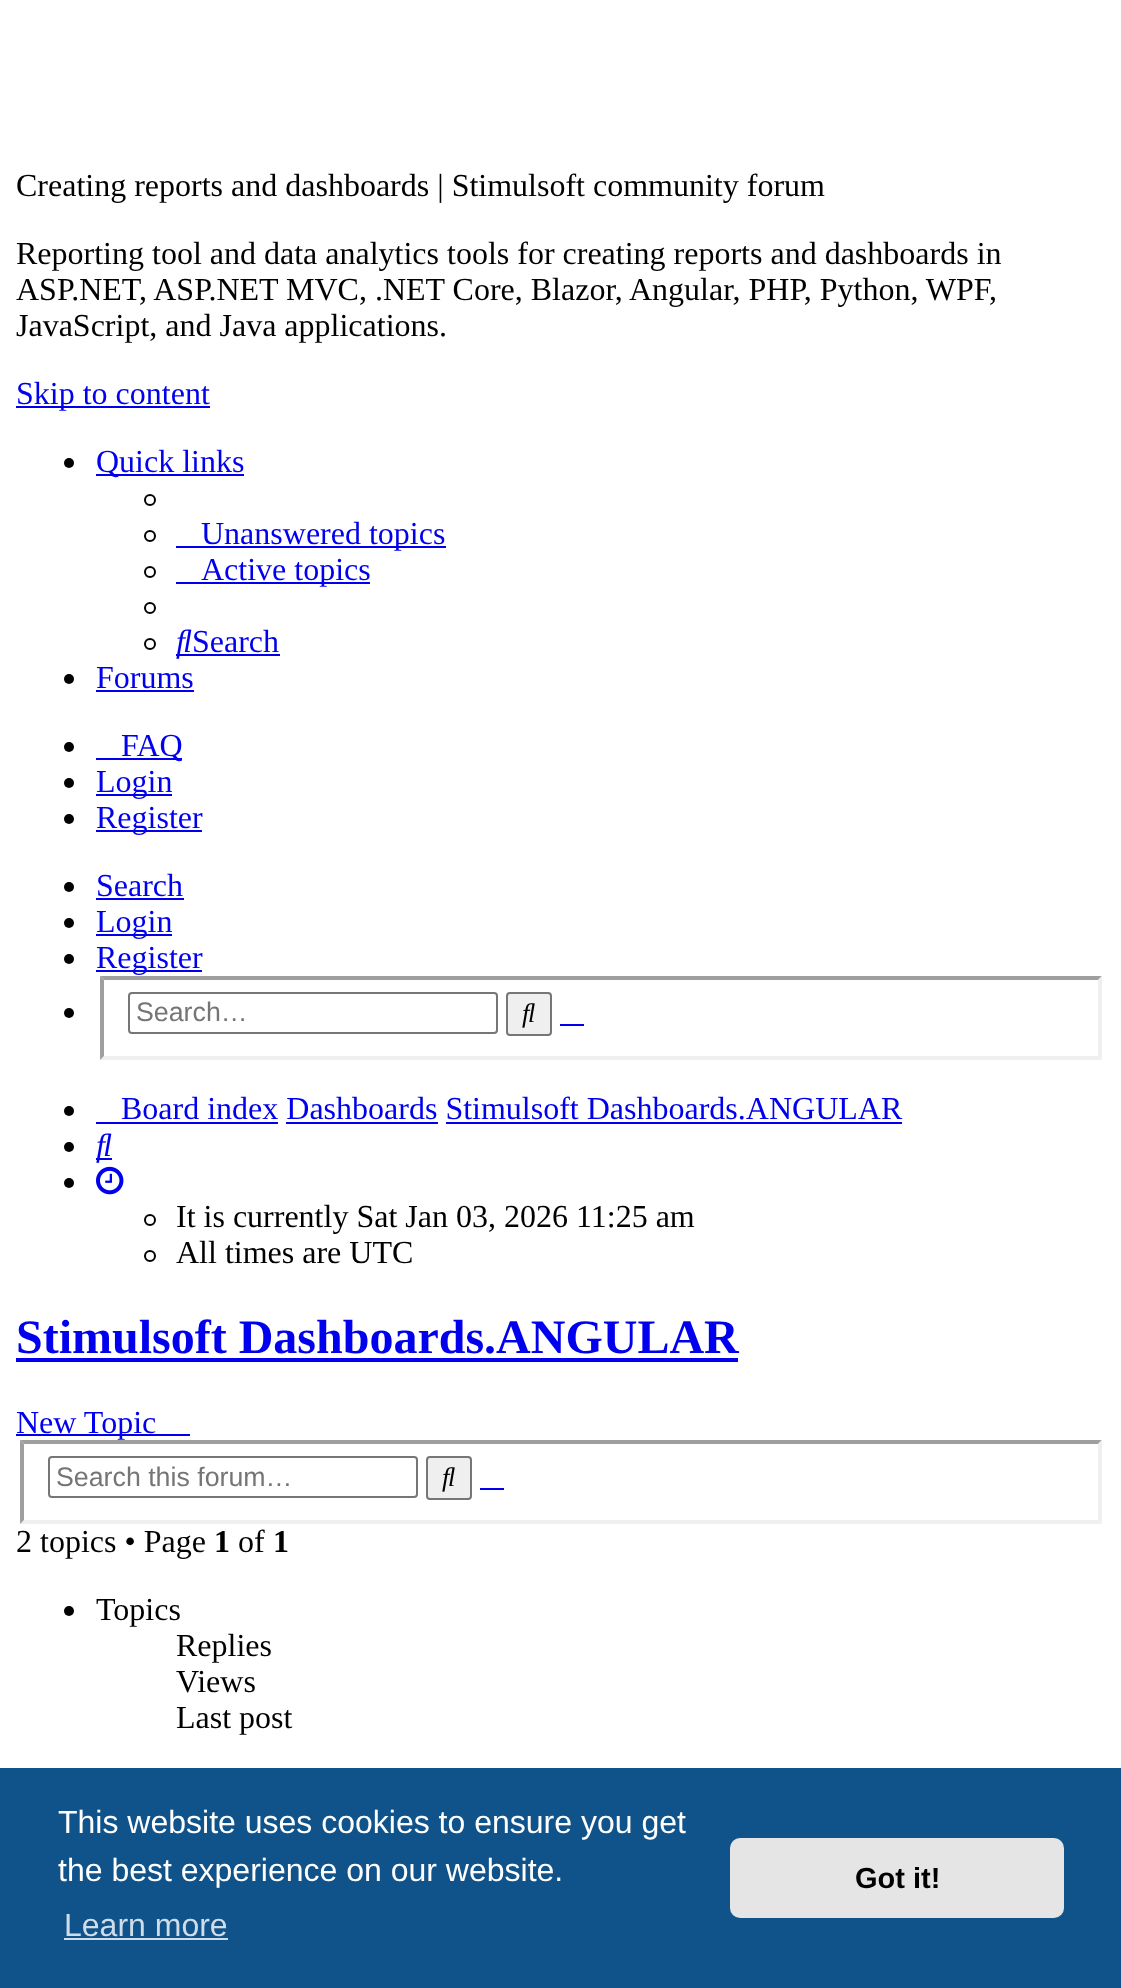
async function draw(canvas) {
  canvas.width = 1121;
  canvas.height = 1988;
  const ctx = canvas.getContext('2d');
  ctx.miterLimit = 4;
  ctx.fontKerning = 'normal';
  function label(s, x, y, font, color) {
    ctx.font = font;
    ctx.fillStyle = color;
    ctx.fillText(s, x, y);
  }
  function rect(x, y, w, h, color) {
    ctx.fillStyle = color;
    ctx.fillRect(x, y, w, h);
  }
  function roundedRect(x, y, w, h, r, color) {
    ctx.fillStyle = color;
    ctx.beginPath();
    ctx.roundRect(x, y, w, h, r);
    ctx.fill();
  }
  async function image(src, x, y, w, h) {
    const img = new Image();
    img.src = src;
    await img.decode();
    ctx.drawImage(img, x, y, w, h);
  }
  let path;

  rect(0, 0, 1121, 1988, '#fff');
  label('Creating reports and dashboards | Stimulsoft community forum', 16, 196, '32px Liberation Serif', '#000');
  label('Reporting tool and data analytics tools for creating reports and dashboards in', 16, 264, '32px Liberation Serif', '#000');
  label('ASP.NET, ASP.NET MVC, .NET Core, Blazor, Angular, PHP, Python, WPF,', 16, 300, '32px Liberation Serif', '#000');
  label('JavaScript, and Java applications.', 16, 336, '32px Liberation Serif', '#000');
  rect(16, 406, 194, 2, '#00e');
  label('Skip to content', 16, 404, '32px Liberation Serif', '#00e');
  ctx.fillStyle = '#000';
  ctx.beginPath();
  ctx.arc(69, 463, 5, 0, 2 * Math.PI);
  ctx.fill();
  rect(96, 474, 148, 2, '#00e');
  label('Quick links', 96, 472, '32px Liberation Serif', '#00e');
  ctx.beginPath();
  ctx.arc(150, 500, 5, 0, 2 * Math.PI);
  ctx.strokeStyle = '#000';
  ctx.lineWidth = 2;
  ctx.stroke();
  ctx.beginPath();
  ctx.arc(150, 536, 5, 0, 2 * Math.PI);
  ctx.stroke();
  rect(176, 546, 270, 2, '#00e');
  label('Unanswered topics', 201, 544, '32px Liberation Serif', '#00e');
  ctx.beginPath();
  ctx.arc(150, 572, 5, 0, 2 * Math.PI);
  ctx.stroke();
  rect(176, 582, 194, 2, '#00e');
  label('Active topics', 201, 580, '32px Liberation Serif', '#00e');
  ctx.beginPath();
  ctx.arc(150, 608, 5, 0, 2 * Math.PI);
  ctx.stroke();
  ctx.beginPath();
  ctx.arc(150, 644, 5, 0, 2 * Math.PI);
  ctx.stroke();
  rect(176, 654, 104, 2, '#00e');
  await image('assets/img1.png', 176, 629, 16, 30);
  label('Search', 192, 652, '32px Liberation Serif', '#00e');
  ctx.fillStyle = '#000';
  ctx.beginPath();
  ctx.arc(69, 679, 5, 0, 2 * Math.PI);
  ctx.fill();
  label('Forums', 96, 688, '32px Liberation Serif', '#00e');
  rect(96, 690, 98, 2, '#00e');
  ctx.fillStyle = '#000';
  ctx.beginPath();
  ctx.arc(69, 747, 5, 0, 2 * Math.PI);
  ctx.fill();
  rect(96, 758, 86, 2, '#00e');
  label('FAQ', 121, 756, '32px Liberation Serif', '#00e');
  ctx.fillStyle = '#000';
  ctx.beginPath();
  ctx.arc(69, 783, 5, 0, 2 * Math.PI);
  ctx.fill();
  rect(96, 794, 76, 2, '#00e');
  label('Login', 96, 792, '32px Liberation Serif', '#00e');
  ctx.fillStyle = '#000';
  ctx.beginPath();
  ctx.arc(69, 819, 5, 0, 2 * Math.PI);
  ctx.fill();
  rect(96, 830, 106, 2, '#00e');
  label('Register', 96, 828, '32px Liberation Serif', '#00e');
  ctx.fillStyle = '#000';
  ctx.beginPath();
  ctx.arc(69, 887, 5, 0, 2 * Math.PI);
  ctx.fill();
  label('Search', 96, 896, '32px Liberation Serif', '#00e');
  rect(96, 898, 88, 2, '#00e');
  ctx.fillStyle = '#000';
  ctx.beginPath();
  ctx.arc(69, 923, 5, 0, 2 * Math.PI);
  ctx.fill();
  rect(96, 934, 76, 2, '#00e');
  label('Login', 96, 932, '32px Liberation Serif', '#00e');
  ctx.fillStyle = '#000';
  ctx.beginPath();
  ctx.arc(69, 959, 5, 0, 2 * Math.PI);
  ctx.fill();
  rect(96, 970, 106, 2, '#00e');
  label('Register', 96, 968, '32px Liberation Serif', '#00e');
  ctx.fillStyle = '#000';
  ctx.beginPath();
  ctx.arc(69, 1013, 5, 0, 2 * Math.PI);
  ctx.fill();
  ctx.fillStyle = '#9f9f9f';
  path = new Path2D('M100 976H1102L1098 980H104Z');
  ctx.fill(path);
  ctx.fillStyle = '#efefef';
  path = new Path2D('M1102 976V1060L1098 1056V980Z');
  ctx.fill(path);
  path = new Path2D('M1102 1060H100L104 1056H1098Z');
  ctx.fill(path);
  ctx.fillStyle = '#9f9f9f';
  path = new Path2D('M100 1060V976L104 980V1056Z');
  ctx.fill(path);
  ctx.beginPath();
  ctx.roundRect(129, 993, 368, 40, 3);
  ctx.strokeStyle = '#767676';
  ctx.stroke();
  label('Search…', 136, 1021, '26.75px Liberation Sans', '#757575');
  ctx.fillStyle = '#efefef';
  ctx.beginPath();
  ctx.roundRect(507, 993, 44, 42, 3);
  ctx.fill();
  ctx.stroke();
  await image('assets/img2.png', 522, 1003, 13, 25);
  rect(560, 1024, 24, 2, '#00e');
  ctx.fillStyle = '#000';
  ctx.beginPath();
  ctx.arc(69, 1111, 5, 0, 2 * Math.PI);
  ctx.fill();
  label('Board index Dashboards Stimulsoft Dashboards.ANGULAR', 121, 1119, '32px Liberation Serif', '#00e');
  rect(96, 1122, 182, 2, '#00e');
  rect(286, 1122, 152, 2, '#00e');
  rect(446, 1122, 456, 2, '#00e');
  ctx.fillStyle = '#000';
  ctx.beginPath();
  ctx.arc(69, 1147, 5, 0, 2 * Math.PI);
  ctx.fill();
  rect(96, 1158, 16, 2, '#00e');
  await image('assets/img1.png', 96, 1133, 16, 30);
  ctx.fillStyle = '#000';
  ctx.beginPath();
  ctx.arc(69, 1183, 5, 0, 2 * Math.PI);
  ctx.fill();
  await image('assets/img3.png', 96, 1166, 28, 29);
  ctx.beginPath();
  ctx.arc(150, 1220, 5, 0, 2 * Math.PI);
  ctx.strokeStyle = '#000';
  ctx.stroke();
  label('It is currently Sat Jan 03, 2026 11:25 am', 176, 1227, '32px Liberation Serif', '#000');
  ctx.beginPath();
  ctx.arc(150, 1256, 5, 0, 2 * Math.PI);
  ctx.stroke();
  label('All times are UTC', 176, 1263, '32px Liberation Serif', '#000');
  label('Stimulsoft Dashboards.ANGULAR', 16, 1353, 'bold 48px Liberation Serif', '#00e');
  rect(16, 1358, 722, 4, '#00e');
  rect(16, 1434, 174, 2, '#00e');
  label('New Topic', 16, 1433, '32px Liberation Serif', '#00e');
  ctx.fillStyle = '#9f9f9f';
  path = new Path2D('M20 1440H1102L1098 1444H24Z');
  ctx.fill(path);
  ctx.fillStyle = '#efefef';
  path = new Path2D('M1102 1440V1524L1098 1520V1444Z');
  ctx.fill(path);
  path = new Path2D('M1102 1524H20L24 1520H1098Z');
  ctx.fill(path);
  ctx.fillStyle = '#9f9f9f';
  path = new Path2D('M20 1524V1440L24 1444V1520Z');
  ctx.fill(path);
  ctx.beginPath();
  ctx.roundRect(49, 1457, 368, 40, 3);
  ctx.strokeStyle = '#767676';
  ctx.stroke();
  label('Search this forum…', 56, 1486, '26.75px Liberation Sans', '#757575');
  ctx.fillStyle = '#efefef';
  ctx.beginPath();
  ctx.roundRect(427, 1457, 44, 42, 3);
  ctx.fill();
  ctx.stroke();
  await image('assets/img2.png', 442, 1467, 13, 25);
  rect(480, 1488, 24, 2, '#00e');
  label('2 topics • Page', 16, 1552, '32px Liberation Serif', '#000');
  label('1', 214, 1552, 'bold 32px Liberation Serif', '#000');
  label('of', 238, 1552, '32px Liberation Serif', '#000');
  label('1', 273, 1552, 'bold 32px Liberation Serif', '#000');
  ctx.beginPath();
  ctx.arc(69, 1611, 5, 0, 2 * Math.PI);
  ctx.fill();
  label('Topics', 96, 1620, '32px Liberation Serif', '#000');
  label('Replies', 176, 1656, '32px Liberation Serif', '#000');
  label('Views', 176, 1692, '32px Liberation Serif', '#000');
  label('Last post', 176, 1728, '32px Liberation Serif', '#000');
  rect(0, 1768, 1121, 220, '#0f538a');
  label('This website uses cookies to ensure you get', 58, 1833, '32px Liberation Sans', '#fff');
  label('the best experience on our website.', 58, 1881, '32px Liberation Sans', '#fff');
  label('Learn more', 64, 1936, '32px Liberation Sans', '#cfdde8');
  rect(64, 1938, 164, 2, '#cfdde8');
  roundedRect(730, 1838, 334, 80, 10, '#e5e5e5');
  label('Got it!', 855, 1888, 'bold 29px Liberation Sans', '#000');
}

draw(document.querySelector('canvas'));
